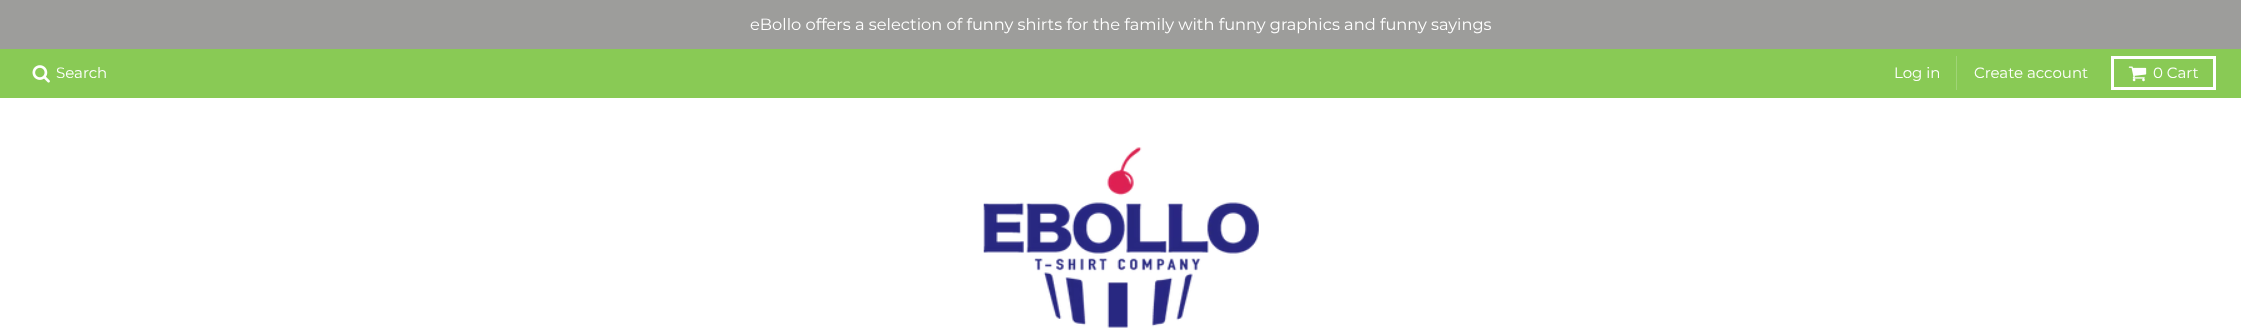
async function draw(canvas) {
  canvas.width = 2241;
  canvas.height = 336;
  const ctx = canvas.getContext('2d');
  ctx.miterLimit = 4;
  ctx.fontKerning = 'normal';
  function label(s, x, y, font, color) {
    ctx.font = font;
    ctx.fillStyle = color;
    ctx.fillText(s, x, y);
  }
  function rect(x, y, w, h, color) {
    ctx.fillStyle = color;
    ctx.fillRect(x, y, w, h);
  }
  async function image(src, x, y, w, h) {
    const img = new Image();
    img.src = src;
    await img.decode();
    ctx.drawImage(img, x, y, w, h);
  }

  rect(0, 0, 2241, 336, '#fff');
  rect(0, 0, 2241, 49, '#9d9d9b');
  label('eBollo offers a selection of funny shirts for the family with funny graphics and funny sayings', 750, 30, '16.25px Montserrat', '#fff');
  rect(0, 49, 2241, 49, '#89ca55');
  await image('assets/img1.png', 32, 65, 18, 18);
  label('Search', 56, 78, '15px Montserrat', '#fff');
  rect(1956, 56, 1, 34, '#a0d477');
  label('Log in', 1894, 78, '15px Montserrat', '#fff');
  label('Create account', 1974, 78, '15px Montserrat', '#fff');
  ctx.strokeStyle = '#fff';
  ctx.lineWidth = 3;
  ctx.strokeRect(2112.5, 57.5, 102, 31);
  await image('assets/img2.png', 2128, 66, 19, 16);
  label('0 Cart', 2153, 78, '15px Montserrat', '#fff');
  await image('assets/img3.png', 983, 147, 276, 181);
}

draw(document.querySelector('canvas'));
